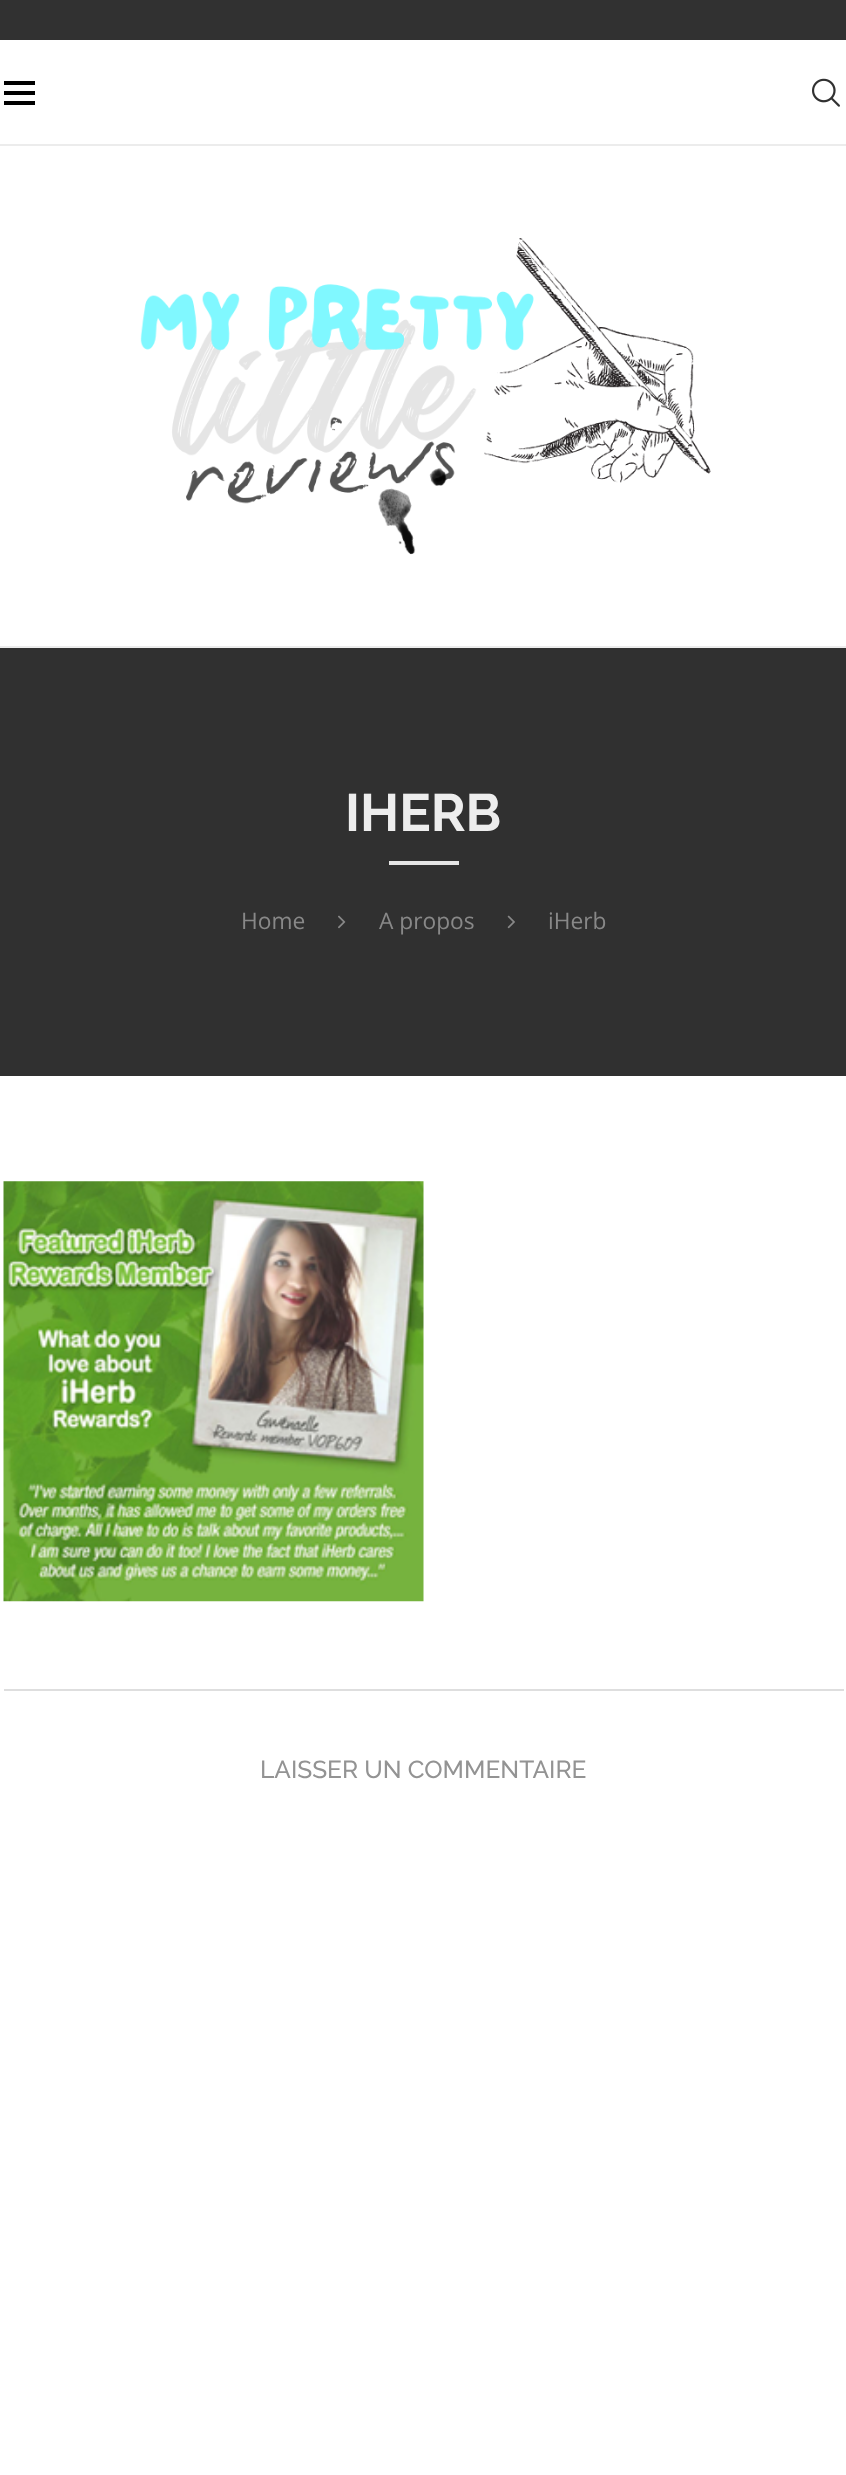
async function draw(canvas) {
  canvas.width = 846;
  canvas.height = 2475;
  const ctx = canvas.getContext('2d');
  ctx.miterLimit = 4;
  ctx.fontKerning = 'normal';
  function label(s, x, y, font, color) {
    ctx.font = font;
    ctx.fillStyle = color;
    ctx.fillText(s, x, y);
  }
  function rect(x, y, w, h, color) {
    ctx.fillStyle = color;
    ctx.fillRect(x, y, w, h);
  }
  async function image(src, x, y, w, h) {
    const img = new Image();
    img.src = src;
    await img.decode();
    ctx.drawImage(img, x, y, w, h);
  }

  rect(0, 0, 846, 2475, '#fff');
  rect(0, 0, 846, 40, '#313131');
  rect(0, 144, 846, 2, '#ececec');
  rect(4, 81, 31, 4, '#000');
  rect(4, 91, 31, 4, '#000');
  rect(4, 101, 31, 4, '#000');
  await image('assets/img1.png', 812, 78, 28, 29);
  rect(0, 646, 846, 2, '#ececec');
  await image('assets/img2.png', 140, 238, 571, 317);
  rect(0, 648, 846, 428, '#303030');
  label('IHERB', 345, 831, 'bold 52.5px Raleway', '#ededed');
  rect(389, 861, 70, 4, '#e5e5e5');
  label('Home', 241, 929, '22.75px Open Sans', '#888');
  await image('assets/img3.png', 338, 915, 8, 14);
  label('A propos', 379, 929, '22.75px Open Sans', '#888');
  await image('assets/img4.png', 507, 915, 8, 14);
  label('iHerb', 548, 929, '22.75px Open Sans', '#888');
  await image('assets/img5.png', 3, 1181, 421, 421);
  rect(4, 1689, 840, 2, '#dedede');
  label('LAISSER UN COMMENTAIRE', 260, 1778, '500 24.5px Raleway', '#939393');
}

draw(document.querySelector('canvas'));
